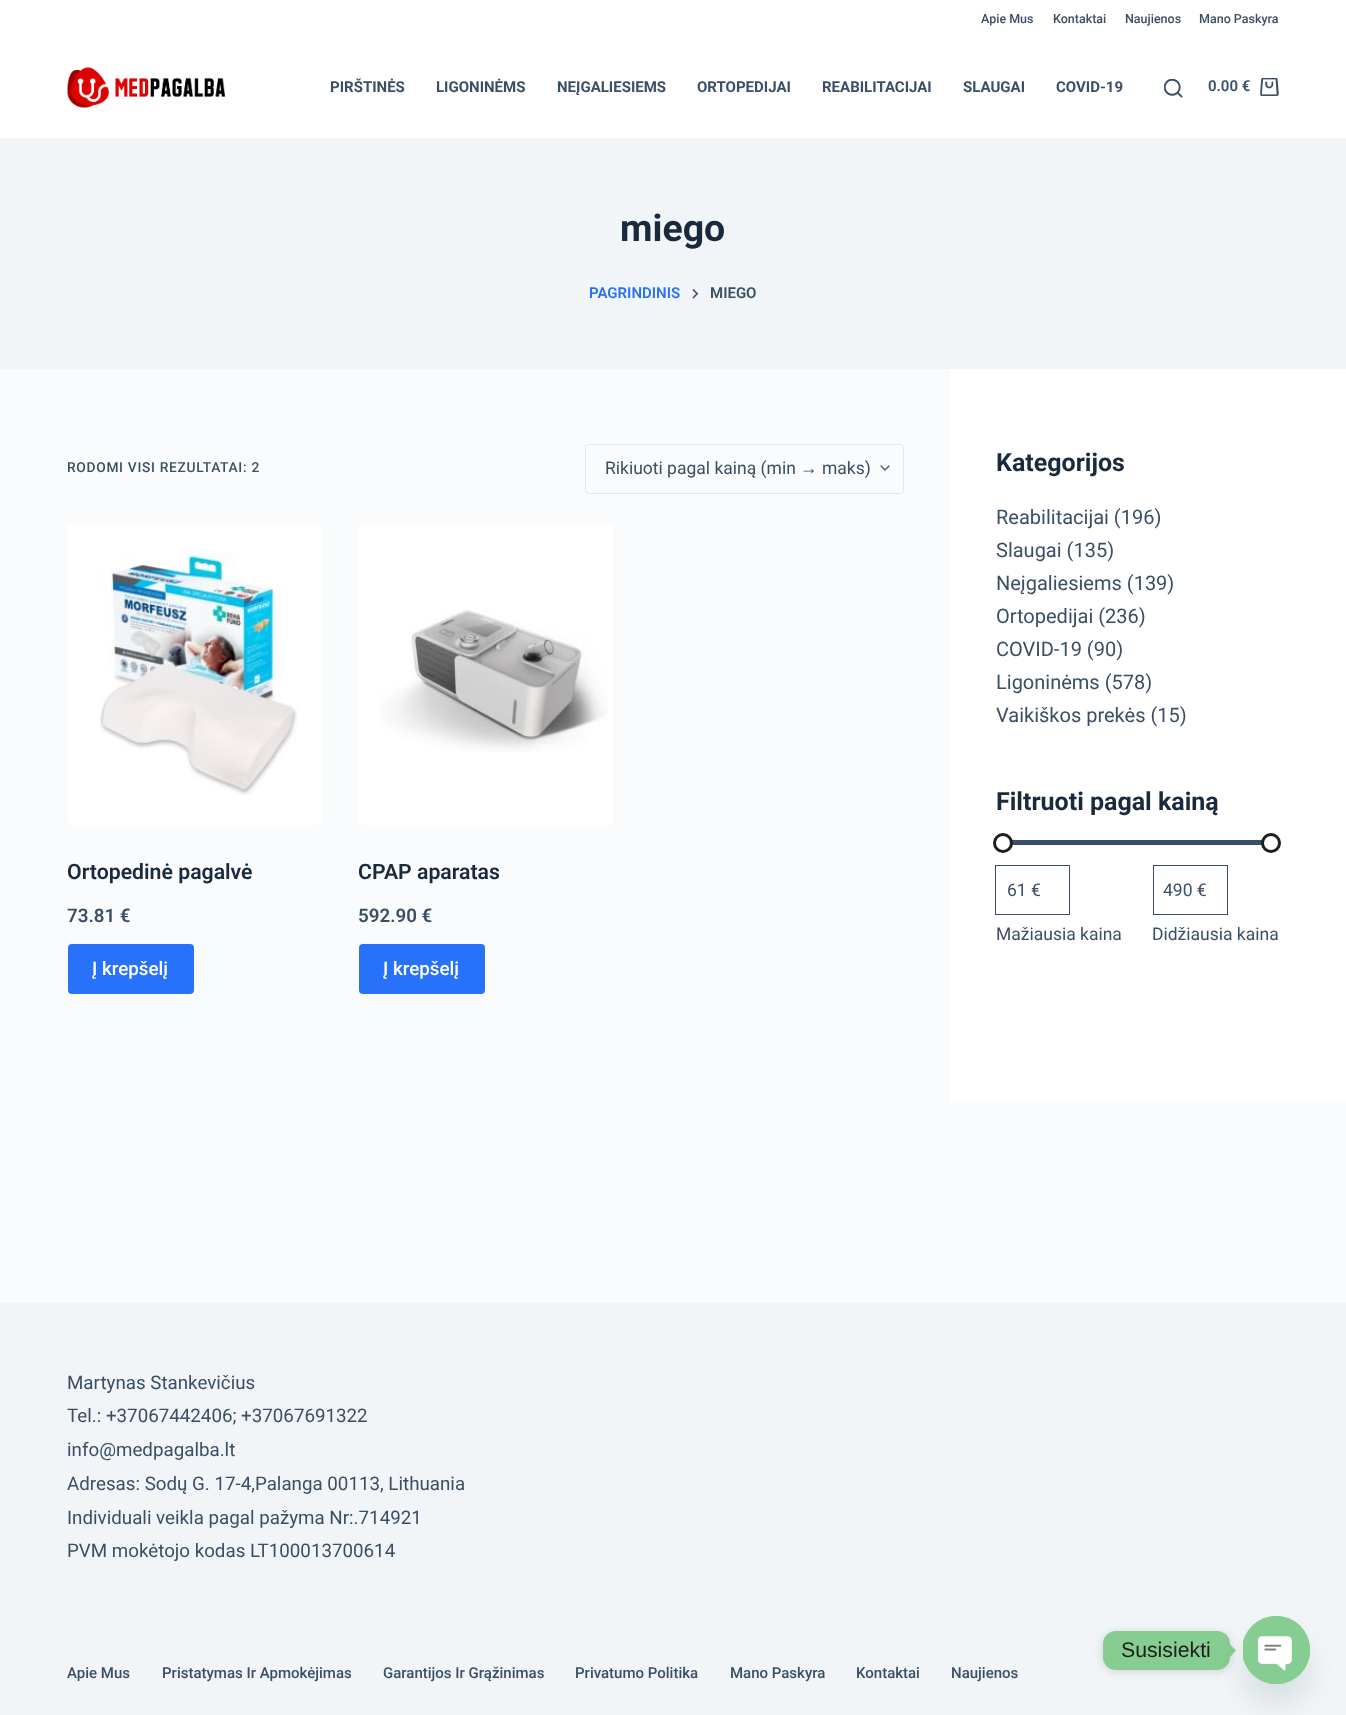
async function draw(canvas) {
  canvas.width = 1346;
  canvas.height = 1715;
  const ctx = canvas.getContext('2d');
  ctx.miterLimit = 4;
  ctx.fontKerning = 'normal';
  function label(s, x, y, font, color) {
    ctx.font = font;
    ctx.fillStyle = color;
    ctx.fillText(s, x, y);
  }
  function rect(x, y, w, h, color) {
    ctx.fillStyle = color;
    ctx.fillRect(x, y, w, h);
  }
  function roundedRect(x, y, w, h, r, color) {
    ctx.fillStyle = color;
    ctx.beginPath();
    ctx.roundRect(x, y, w, h, r);
    ctx.fill();
  }
  async function image(src, x, y, w, h) {
    const img = new Image();
    img.src = src;
    await img.decode();
    ctx.drawImage(img, x, y, w, h);
  }
  let path;

  rect(0, 0, 1346, 1715, '#fafbfc');
  rect(0, 0, 1346, 138, '#fff');
  label('Apie Mus', 981, 23, '500 12.5px Roboto', '#3a4f66');
  label('Kontaktai', 1053, 23, '500 12.5px Roboto', '#3a4f66');
  label('Naujienos', 1125, 23, '500 12.5px Roboto', '#3a4f66');
  label('Mano Paskyra', 1199, 23, '500 12.5px Roboto', '#3a4f66');
  await image('assets/img1.png', 67, 67, 158, 41);
  label('PIRŠTINĖS', 330, 92, 'bold 15px Roboto', '#3a4f66');
  label('LIGONINĖMS', 436, 92, 'bold 15px Roboto', '#3a4f66');
  label('NEĮGALIESIEMS', 557, 92, 'bold 15px Roboto', '#3a4f66');
  label('ORTOPEDIJAI', 697, 92, 'bold 15px Roboto', '#3a4f66');
  label('REABILITACIJAI', 822, 92, 'bold 15px Roboto', '#3a4f66');
  label('SLAUGAI', 963, 92, 'bold 15px Roboto', '#3a4f66');
  label('COVID-19', 1056, 92, 'bold 15px Roboto', '#3a4f66');
  await image('assets/img2.png', 1164, 79, 19, 19);
  label('0.00 €', 1208, 91, '600 15px Roboto', '#3a4f66');
  await image('assets/img3.png', 1260, 78, 19, 18);
  rect(0, 138, 1346, 231, '#f2f5f7');
  label('miego', 620, 241, 'bold 37.5px Roboto', '#192a3d');
  label('PAGRINDINIS', 589, 298, '600 15px Roboto', '#2872fa');
  await image('assets/img4.png', 692, 289, 7, 10);
  label('MIEGO', 710, 298, '600 15px Roboto', '#3a4f66');
  ctx.letterSpacing = '0.7px';
  label('RODOMI VISI REZULTATAI: 2', 67, 472, '500 13.75px Roboto', '#3a4f66');
  await image('assets/img5.png', 880, 465, 10, 6);
  ctx.beginPath();
  ctx.roundRect(585.5, 444.5, 318, 49, 3.5);
  ctx.strokeStyle = '#e1e8ed';
  ctx.stroke();
  ctx.letterSpacing = '0px';
  label('Rikiuoti pagal kainą (min', 605, 474, '17.5px Roboto', '#3a4f66');
  label('→', 800, 474, '17.5px Liberation Sans', '#3a4f66');
  label('maks)', 822, 474, '17.5px Roboto', '#3a4f66');
  roundedRect(68, 525, 253, 300, 4, '#fff');
  await image('assets/img6.png', 99, 551, 199, 244);
  label('Ortopedinė pagalvė', 67, 879, '600 21.25px Roboto', '#192a3d');
  label('73.81 €', 67, 922, '600 18.75px Roboto', '#3a4f66');
  roundedRect(68, 944, 126, 50, 4, '#2872fa');
  label('Į krepšelį', 92, 975, '500 18.75px Roboto', '#fff');
  roundedRect(359, 525, 254, 300, 4, '#fff');
  await image('assets/img7.png', 380, 609, 228, 143);
  label('CPAP aparatas', 358, 879, '600 21.25px Roboto', '#192a3d');
  label('592.90 €', 358, 922, '600 18.75px Roboto', '#3a4f66');
  roundedRect(359, 944, 126, 50, 4, '#2872fa');
  label('Į krepšelį', 383, 975, '500 18.75px Roboto', '#fff');
  rect(951, 369, 395, 734, '#fff');
  label('Kategorijos', 996, 471, 'bold 25px Roboto', '#192a3d');
  label('Reabilitacijai (196)', 996, 524, '20px Roboto', '#3a4f66');
  label('Slaugai (135)', 996, 557, '20px Roboto', '#3a4f66');
  label('Neįgaliesiems (139)', 996, 590, '20px Roboto', '#3a4f66');
  label('Ortopedijai (236)', 996, 623, '20px Roboto', '#3a4f66');
  label('COVID-19 (90)', 996, 656, '20px Roboto', '#3a4f66');
  label('Ligoninėms (578)', 996, 689, '20px Roboto', '#3a4f66');
  label('Vaikiškos prekės (15)', 996, 722, '20px Roboto', '#3a4f66');
  label('Filtruoti pagal kainą', 996, 810, 'bold 25px Roboto', '#192a3d');
  rect(1012, 840, 250, 5, '#3a4f66');
  ctx.fillStyle = '#fff';
  ctx.beginPath();
  ctx.arc(1003, 843, 8.5, 0, 2 * Math.PI);
  ctx.fill();
  ctx.strokeStyle = '#1e1e1e';
  ctx.lineWidth = 3;
  ctx.stroke();
  ctx.beginPath();
  ctx.arc(1271, 843, 8.5, 0, 2 * Math.PI);
  ctx.fill();
  ctx.stroke();
  ctx.strokeStyle = '#3a4f66';
  ctx.lineWidth = 1;
  ctx.strokeRect(995.5, 865.5, 74, 49);
  label('61 €', 1007, 896, '17.5px Roboto', '#3a4f66');
  label('Mažiausia kaina', 996, 940, '17.5px Roboto', '#3a4f66');
  ctx.strokeRect(1153.5, 865.5, 74, 49);
  label('490 €', 1163, 896, '17.5px Roboto', '#3a4f66');
  label('Didžiausia kaina', 1152, 940, '17.5px Roboto', '#3a4f66');
  rect(0, 1303, 1346, 412, '#f2f5f7');
  label('Martynas Stankevičius', 67, 1389, '18.75px Roboto', '#3a4f66');
  label('Tel.: +37067442406; +37067691322', 67, 1422, '18.75px Roboto', '#3a4f66');
  label('info@medpagalba.lt', 67, 1456, '18.75px Roboto', '#3a4f66');
  label('Adresas: Sodų G. 17-4,Palanga 00113, Lithuania', 67, 1490, '18.75px Roboto', '#3a4f66');
  label('Individuali veikla pagal pažyma Nr:.714921', 67, 1524, '18.75px Roboto', '#3a4f66');
  label('PVM mokėtojo kodas LT100013700614', 67, 1557, '18.75px Roboto', '#3a4f66');
  label('Apie Mus', 67, 1678, '500 15px Roboto', '#3a4f66');
  label('Pristatymas Ir Apmokėjimas', 162, 1678, '500 15px Roboto', '#3a4f66');
  label('Garantijos Ir Grąžinimas', 383, 1678, '500 15px Roboto', '#3a4f66');
  label('Privatumo Politika', 575, 1678, '500 15px Roboto', '#3a4f66');
  label('Mano Paskyra', 730, 1678, '500 15px Roboto', '#3a4f66');
  label('Kontaktai', 856, 1678, '500 15px Roboto', '#3a4f66');
  label('Naujienos', 951, 1678, '500 15px Roboto', '#3a4f66');
  ctx.fillStyle = '#00000026';
  ctx.filter = 'blur(5px)';
  ctx.beginPath();
  ctx.roundRect(1103, 1633, 127, 38, 13);
  ctx.fill();
  ctx.filter = 'none';
  roundedRect(1103, 1631, 127, 39, 13, '#86cd91');
  label('Susisiekti', 1121, 1657, '21.25px Liberation Sans', '#202020');
  ctx.fillStyle = '#86cd91';
  path = new Path2D('M1230 1657V1644.5L1236 1650.5Z');
  ctx.fill(path);
  ctx.fillStyle = '#49687e29';
  ctx.filter = 'blur(15px)';
  ctx.beginPath();
  ctx.roundRect(1243, 1636, 67, 68, 33.5);
  ctx.fill();
  ctx.filter = 'none';
  roundedRect(1243, 1616, 67, 68, 33.5, '#86cd91');
  await image('assets/img8.png', 1243, 1616, 67, 68);
}

draw(document.querySelector('canvas'));
